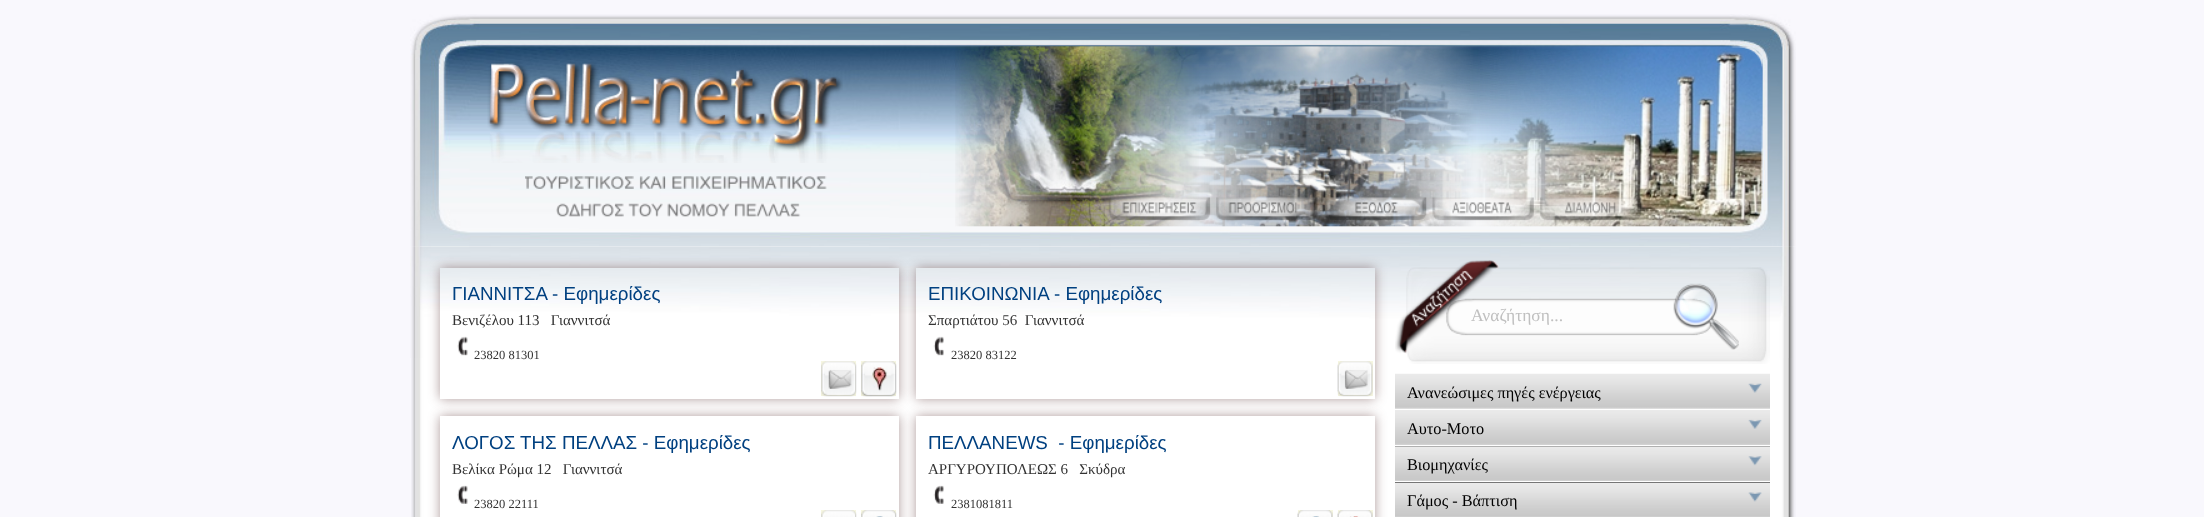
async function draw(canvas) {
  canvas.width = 2204;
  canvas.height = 517;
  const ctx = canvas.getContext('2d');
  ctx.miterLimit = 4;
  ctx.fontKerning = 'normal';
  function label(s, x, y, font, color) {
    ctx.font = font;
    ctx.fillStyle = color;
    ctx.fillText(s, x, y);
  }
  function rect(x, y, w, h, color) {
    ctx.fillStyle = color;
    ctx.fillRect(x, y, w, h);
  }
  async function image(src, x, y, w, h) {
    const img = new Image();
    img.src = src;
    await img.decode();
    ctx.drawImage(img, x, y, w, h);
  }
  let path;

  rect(0, 0, 2204, 517, '#f9f8fd');
  await image('assets/img10.png', 411, 246, 1385, 271);
  await image('assets/img11.png', 410, 246, 1383, 112);
  await image('assets/img1.png', 410, 14, 1386, 233);
  await image('assets/img2.png', 487, 62, 356, 101);
  await image('assets/img3.png', 955, 46, 808, 181);
  await image('assets/img4.png', 525, 176, 302, 41);
  await image('assets/img5.png', 1108, 197, 103, 24);
  await image('assets/img6.png', 1216, 197, 102, 24);
  await image('assets/img7.png', 1325, 197, 102, 24);
  await image('assets/img8.png', 1432, 197, 102, 24);
  await image('assets/img9.png', 1540, 197, 102, 24);
  ctx.save();
  path = new Path2D('M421 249H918V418H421ZM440 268H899V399H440Z');
  ctx.clip(path, 'evenodd');
  ctx.fillStyle = '#47181870';
  ctx.filter = 'blur(6px)';
  ctx.beginPath();
  ctx.rect(440, 268, 459, 131);
  ctx.fill();
  ctx.filter = 'none';
  ctx.restore();
  label('ΓΙΑΝΝΙΤΣΑ - Εφημερίδες', 452, 300, '18.75px Liberation Sans', '#004080');
  label('Βενιζέλου 113   Γιαννιτσά', 452, 325, '15px Liberation Serif', '#333');
  await image('assets/img12.png', 457, 336, 11, 20);
  label('23820 81301', 474, 359, '12.5px Liberation Serif', '#333');
  rect(821, 361, 35, 35, '#f6f6e1');
  await image('assets/img13.png', 821, 361, 36, 36);
  rect(861, 361, 35, 35, '#f6f6e1');
  await image('assets/img14.png', 861, 361, 36, 36);
  ctx.save();
  path = new Path2D('M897 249H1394V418H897ZM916 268H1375V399H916Z');
  ctx.clip(path, 'evenodd');
  ctx.fillStyle = '#47181870';
  ctx.filter = 'blur(6px)';
  ctx.beginPath();
  ctx.rect(916, 268, 459, 131);
  ctx.fill();
  ctx.filter = 'none';
  ctx.restore();
  label('ΕΠΙΚΟΙΝΩΝΙΑ - Εφημερίδες', 928, 300, '18.75px Liberation Sans', '#004080');
  label('Σπαρτιάτου 56  Γιαννιτσά', 928, 325, '15px Liberation Serif', '#333');
  await image('assets/img15.png', 933, 336, 11, 20);
  label('23820 83122', 951, 359, '12.5px Liberation Serif', '#333');
  rect(1338, 361, 35, 35, '#f6f6e1');
  await image('assets/img16.png', 1337, 361, 36, 36);
  ctx.save();
  path = new Path2D('M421 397H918V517H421ZM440 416H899V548H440Z');
  ctx.clip(path, 'evenodd');
  ctx.fillStyle = '#47181870';
  ctx.filter = 'blur(6px)';
  ctx.beginPath();
  ctx.rect(440, 416, 459, 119);
  ctx.fill();
  ctx.filter = 'none';
  ctx.restore();
  label('ΛΟΓΟΣ ΤΗΣ ΠΕΛΛΑΣ - Εφημερίδες', 452, 449, '18.75px Liberation Sans', '#004080');
  label('Βελίκα Ρώμα 12   Γιαννιτσά', 452, 474, '15px Liberation Serif', '#333');
  await image('assets/img17.png', 457, 485, 11, 19);
  label('23820 22111', 474, 508, '12.5px Liberation Serif', '#333');
  rect(821, 510, 35, 7, '#f6f6e1');
  await image('assets/img18.png', 821, 510, 36, 7);
  rect(861, 510, 35, 7, '#f6f6e1');
  await image('assets/img19.png', 861, 510, 36, 7);
  ctx.save();
  path = new Path2D('M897 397H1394V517H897ZM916 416H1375V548H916Z');
  ctx.clip(path, 'evenodd');
  ctx.fillStyle = '#47181870';
  ctx.filter = 'blur(6px)';
  ctx.beginPath();
  ctx.rect(916, 416, 459, 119);
  ctx.fill();
  ctx.filter = 'none';
  ctx.restore();
  label('ΠΕΛΛΑNEWS  - Εφημερίδες', 928, 449, '18.75px Liberation Sans', '#004080');
  label('ΑΡΓΥΡΟΥΠΟΛΕΩΣ 6   Σκύδρα', 928, 474, '15px Liberation Serif', '#333');
  await image('assets/img20.png', 933, 485, 11, 19);
  label('2381081811', 951, 508, '12.5px Liberation Serif', '#333');
  rect(1298, 510, 35, 7, '#f6f6e1');
  await image('assets/img21.png', 1297, 510, 36, 7);
  rect(1338, 510, 35, 7, '#f6f6e1');
  await image('assets/img22.png', 1337, 510, 36, 7);
  await image('assets/img23.png', 1395, 260, 375, 104);
  label('Αναζήτηση...', 1471, 321, '17.5px Liberation Serif', '#c0c0c0');
  await image('assets/img24.png', 1673, 283, 66, 67);
  await image('assets/img25.png', 1395, 373, 375, 36);
  label('Ανανεώσιμες πηγές ενέργειας', 1407, 398, '16.25px Liberation Serif', '#000');
  await image('assets/img26.png', 1748, 383, 14, 10);
  await image('assets/img27.png', 1395, 410, 375, 35);
  label('Αυτο-Μοτο', 1407, 434, '16.25px Liberation Serif', '#000');
  await image('assets/img28.png', 1748, 419, 14, 10);
  rect(1395, 446, 375, 37, '#000');
  await image('assets/img29.png', 1395, 446, 375, 35);
  rect(1395, 481, 375, 1, '#fff');
  label('Βιομηχανίες', 1407, 470, '16.25px Liberation Serif', '#000');
  await image('assets/img30.png', 1748, 456, 14, 10);
  await image('assets/img31.png', 1395, 482, 375, 35);
  label('Γάμος - Βάπτιση', 1407, 506, '16.25px Liberation Serif', '#000');
  await image('assets/img32.png', 1748, 492, 14, 10);
}

draw(document.querySelector('canvas'));
